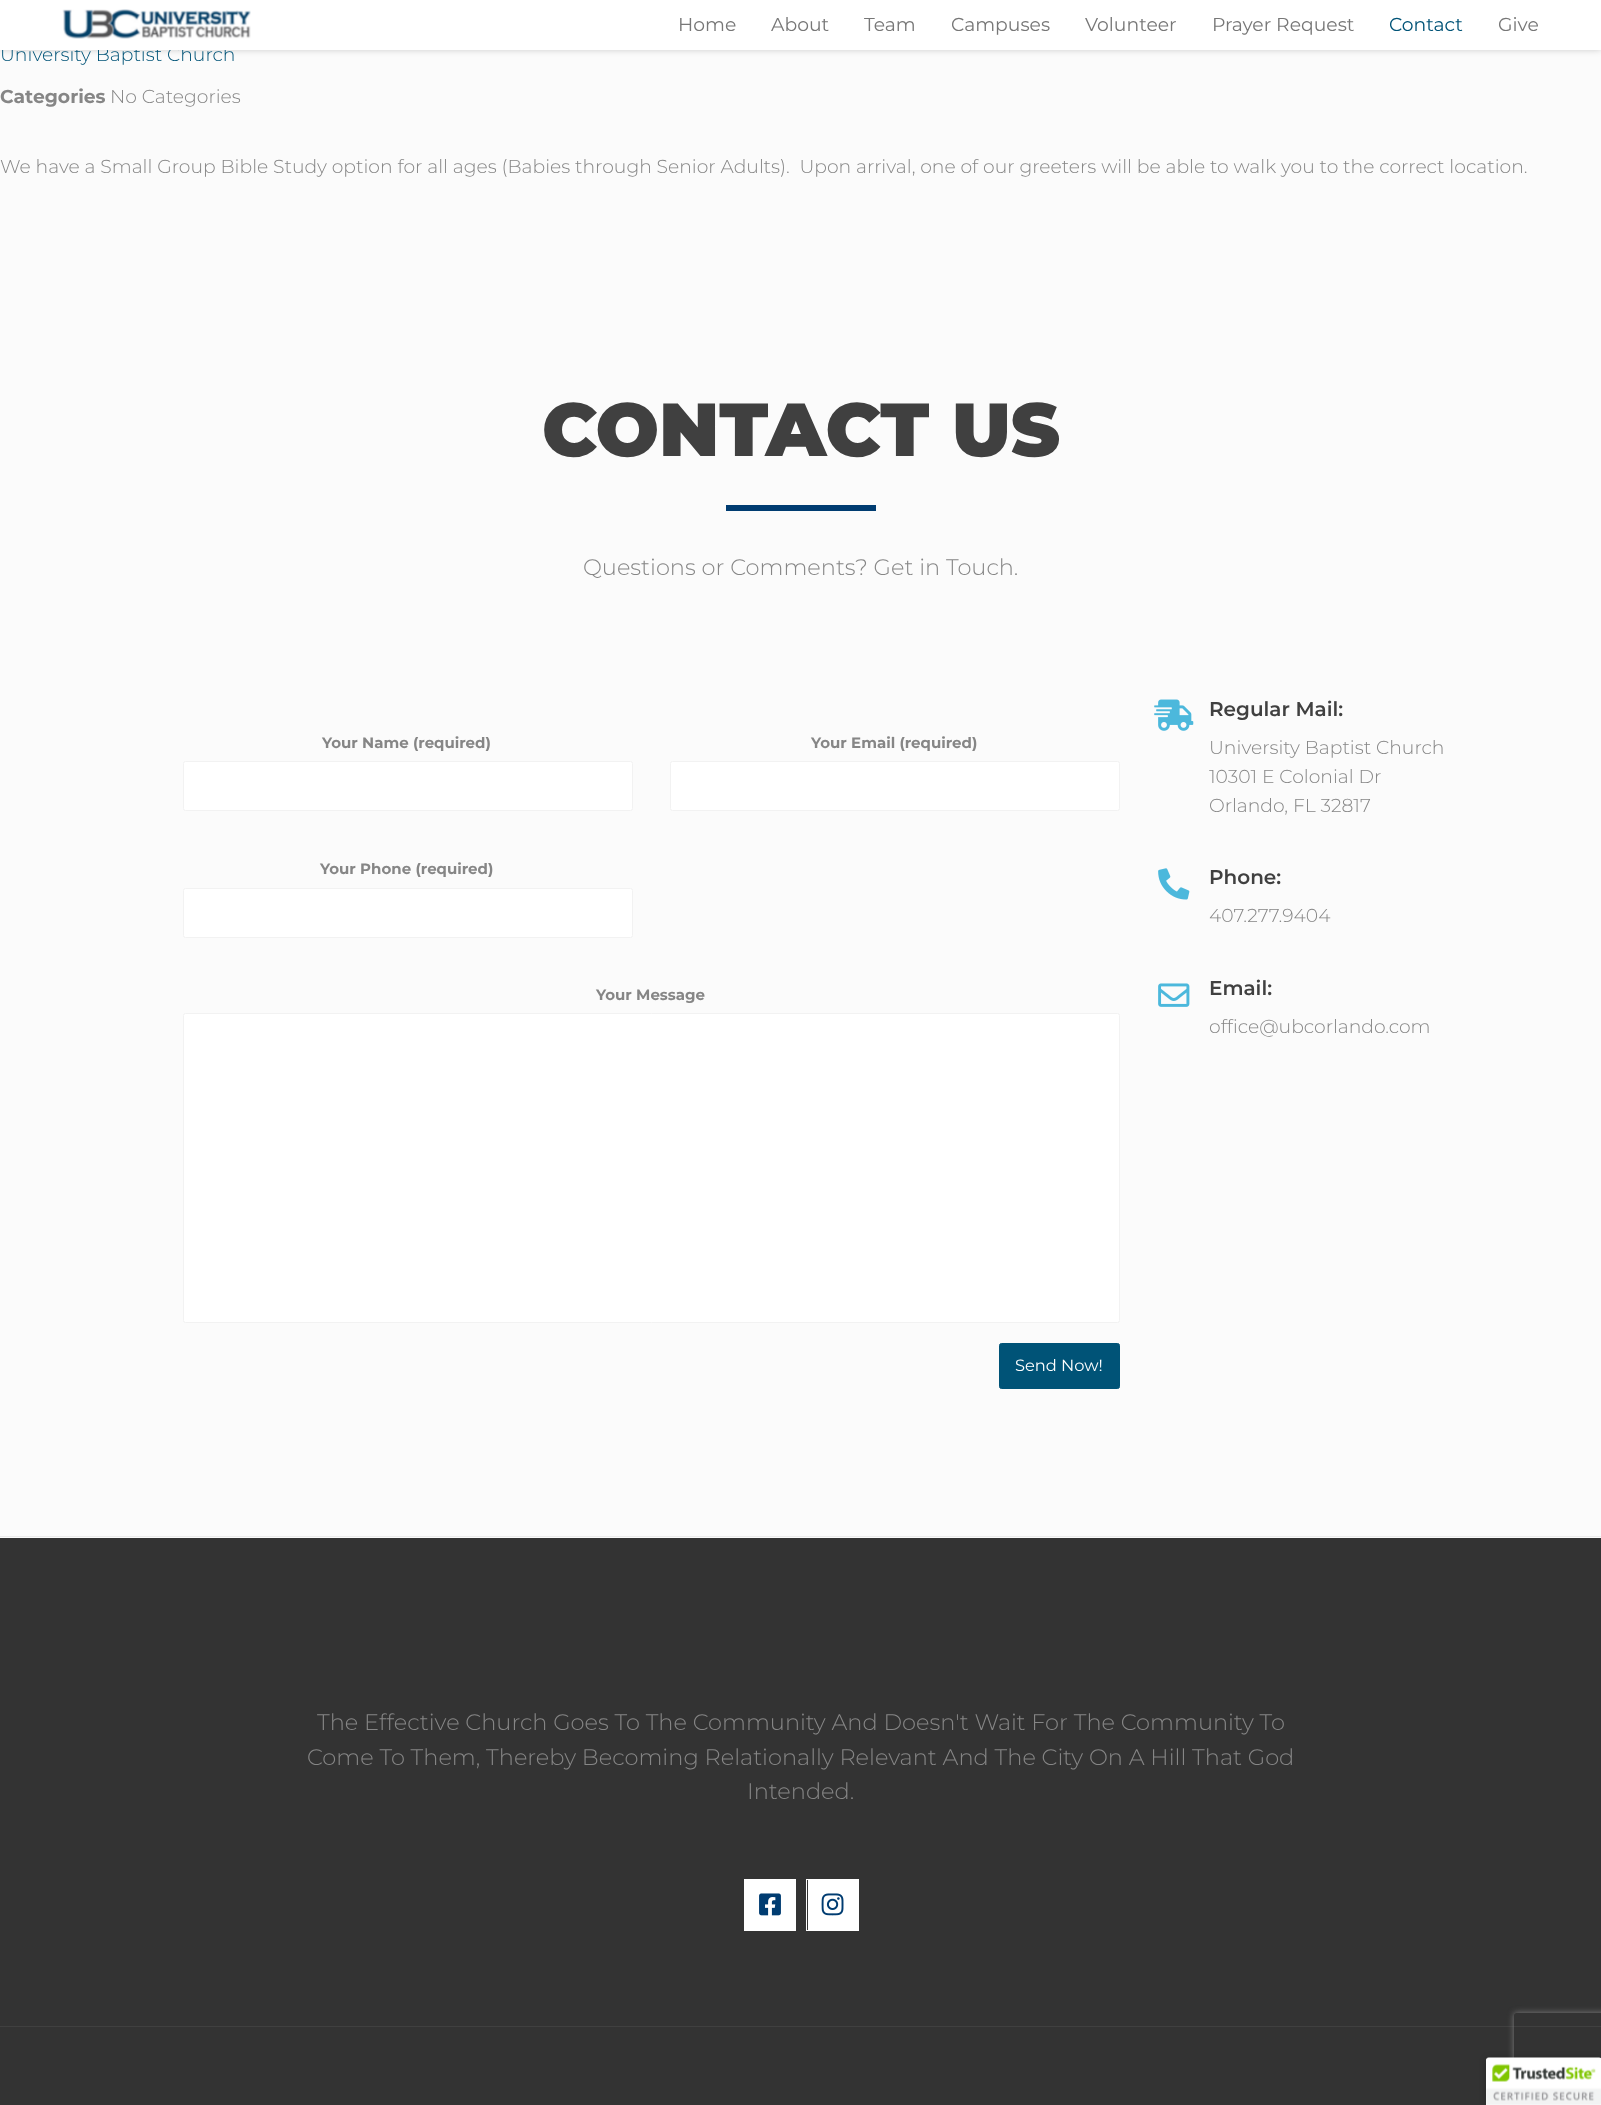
async function draw(canvas) {
  canvas.width = 1601;
  canvas.height = 2105;
  const ctx = canvas.getContext('2d');
  ctx.miterLimit = 4;
  ctx.fontKerning = 'normal';
  function label(s, x, y, font, color) {
    ctx.font = font;
    ctx.fillStyle = color;
    ctx.fillText(s, x, y);
  }
  function rect(x, y, w, h, color) {
    ctx.fillStyle = color;
    ctx.fillRect(x, y, w, h);
  }
  async function image(src, x, y, w, h) {
    const img = new Image();
    img.src = src;
    await img.decode();
    ctx.drawImage(img, x, y, w, h);
  }
  let path;

  rect(0, 0, 1601, 2105, '#fbfbfb');
  ctx.fillStyle = '#00000030';
  ctx.filter = 'blur(3px)';
  ctx.beginPath();
  ctx.rect(0, 0, 1601, 50);
  ctx.fill();
  ctx.filter = 'none';
  label('University Baptist Church', 0, 61, '300 18.75px Montserrat', '#005377');
  rect(0, 0, 1601, 50, '#fff');
  await image('assets/img1.png', 62, 9, 189, 30);
  label('Home', 678, 31, '18.75px Montserrat', '#777');
  label('About', 771, 31, '18.75px Montserrat', '#777');
  label('Team', 864, 31, '18.75px Montserrat', '#777');
  label('Campuses', 951, 31, '18.75px Montserrat', '#777');
  label('Volunteer', 1085, 31, '18.75px Montserrat', '#777');
  label('Prayer Request', 1212, 31, '18.75px Montserrat', '#777');
  label('Contact', 1389, 31, '18.75px Montserrat', '#005377');
  label('Give', 1498, 31, '18.75px Montserrat', '#777');
  label('Categories', 0, 103, 'bold 18.75px Montserrat', '#868686');
  label('No Categories', 110, 103, '300 18.75px Montserrat', '#868686');
  label('We have a Small Group Bible Study option for all ages (Babies through Senior Adults).  Upon arrival, one of our greeters will be able to walk you to the correct location.', 0, 173, '300 18.75px Montserrat', '#868686');
  rect(0, 1536, 1601, 1, '#ebebeb');
  label('CONTACT US', 542, 456, '900 75px Montserrat', '#404040');
  rect(726, 505, 150, 6, '#003c71');
  label('Questions or Comments? Get in Touch.', 583, 575, '300 22.5px Montserrat', '#868686');
  label('Your Name (required)', 322, 748, 'bold 15px Montserrat', '#868686');
  ctx.fillStyle = '#fff';
  ctx.beginPath();
  ctx.roundRect(183.5, 761.5, 449, 49, 2);
  ctx.fill();
  ctx.strokeStyle = '#f2f2f2';
  ctx.stroke();
  label('Your Email (required)', 811, 748, 'bold 15px Montserrat', '#868686');
  ctx.fillStyle = '#fff';
  ctx.beginPath();
  ctx.roundRect(670.5, 761.5, 449, 49, 2);
  ctx.fill();
  ctx.stroke();
  label('Your Phone (required)', 320, 874, 'bold 15px Montserrat', '#868686');
  ctx.fillStyle = '#fff';
  ctx.beginPath();
  ctx.roundRect(183.5, 888.5, 449, 49, 2);
  ctx.fill();
  ctx.stroke();
  label('Your Message', 596, 1000, 'bold 15px Montserrat', '#868686');
  ctx.fillStyle = '#fff';
  ctx.beginPath();
  ctx.roundRect(183.5, 1013.5, 936, 309, 2);
  ctx.fill();
  ctx.stroke();
  ctx.fillStyle = '#005377';
  ctx.beginPath();
  ctx.roundRect(999.5, 1343.5, 120, 45, 2);
  ctx.fill();
  ctx.strokeStyle = '#005377';
  ctx.stroke();
  label('Send Now!', 1015, 1371, '16.25px Montserrat', '#fff');
  await image('assets/img2.png', 1154, 699, 40, 32);
  label('Regular Mail:', 1209, 716, '600 20px Montserrat', '#404040');
  label('University Baptist Church', 1209, 754, '300 18.75px Montserrat', '#868686');
  label('10301 E Colonial Dr', 1209, 783, '300 18.75px Montserrat', '#868686');
  label('Orlando, FL 32817', 1209, 812, '300 18.75px Montserrat', '#868686');
  await image('assets/img3.png', 1158, 868, 32, 32);
  label('Phone:', 1209, 884, '600 20px Montserrat', '#404040');
  label('407.277.9404', 1209, 922, '300 18.75px Montserrat', '#868686');
  await image('assets/img4.png', 1158, 983, 32, 24);
  label('Email:', 1209, 995, '600 20px Montserrat', '#404040');
  label('office@ubcorlando.com', 1209, 1033, '300 18.75px Montserrat', '#868686');
  rect(0, 1538, 1601, 567, '#333');
  rect(0, 2026, 1601, 1, '#404040');
  label('The Effective Church Goes To The Community And Doesn\'t Wait For The Community To', 317, 1730, '300 22.5px Montserrat', '#868686');
  label('Come To Them, Thereby Becoming Relationally Relevant And The City On A Hill That God', 307, 1765, '300 22.5px Montserrat', '#868686');
  label('Intended.', 747, 1799, '300 22.5px Montserrat', '#868686');
  ctx.strokeStyle = '#fff';
  ctx.strokeRect(744.5, 1879.5, 51, 51);
  rect(745, 1880, 50, 50, '#fff');
  await image('assets/img5.png', 759, 1893, 22, 23);
  ctx.strokeRect(806.5, 1879.5, 52, 51);
  rect(808, 1880, 50, 50, '#fff');
  await image('assets/img6.png', 821, 1893, 23, 23);
  ctx.save();
  path = new Path2D('M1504 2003H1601V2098H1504ZM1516.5 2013H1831.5C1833 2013 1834 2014 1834 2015.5V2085.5C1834 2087 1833 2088 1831.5 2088H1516.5C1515 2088 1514 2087 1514 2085.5V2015.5C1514 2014 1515 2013 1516.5 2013Z');
  ctx.clip(path, 'evenodd');
  ctx.fillStyle = '#808080';
  ctx.filter = 'blur(3px)';
  ctx.beginPath();
  ctx.roundRect(1514, 2013, 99, 75, 2.5);
  ctx.fill();
  ctx.filter = 'none';
  ctx.restore();
  ctx.fillStyle = '#00000033';
  ctx.filter = 'blur(3px)';
  ctx.beginPath();
  ctx.roundRect(1486, 2058, 115, 47, 2.5);
  ctx.fill();
  ctx.filter = 'none';
  ctx.fillStyle = '#fff';
  ctx.beginPath();
  ctx.roundRect(1486, 2058, 115, 47, [2.5, 0, 0, 0]);
  ctx.fill();
  await image('assets/img7.png', 1486, 2057, 115, 48);
}

draw(document.querySelector('canvas'));
